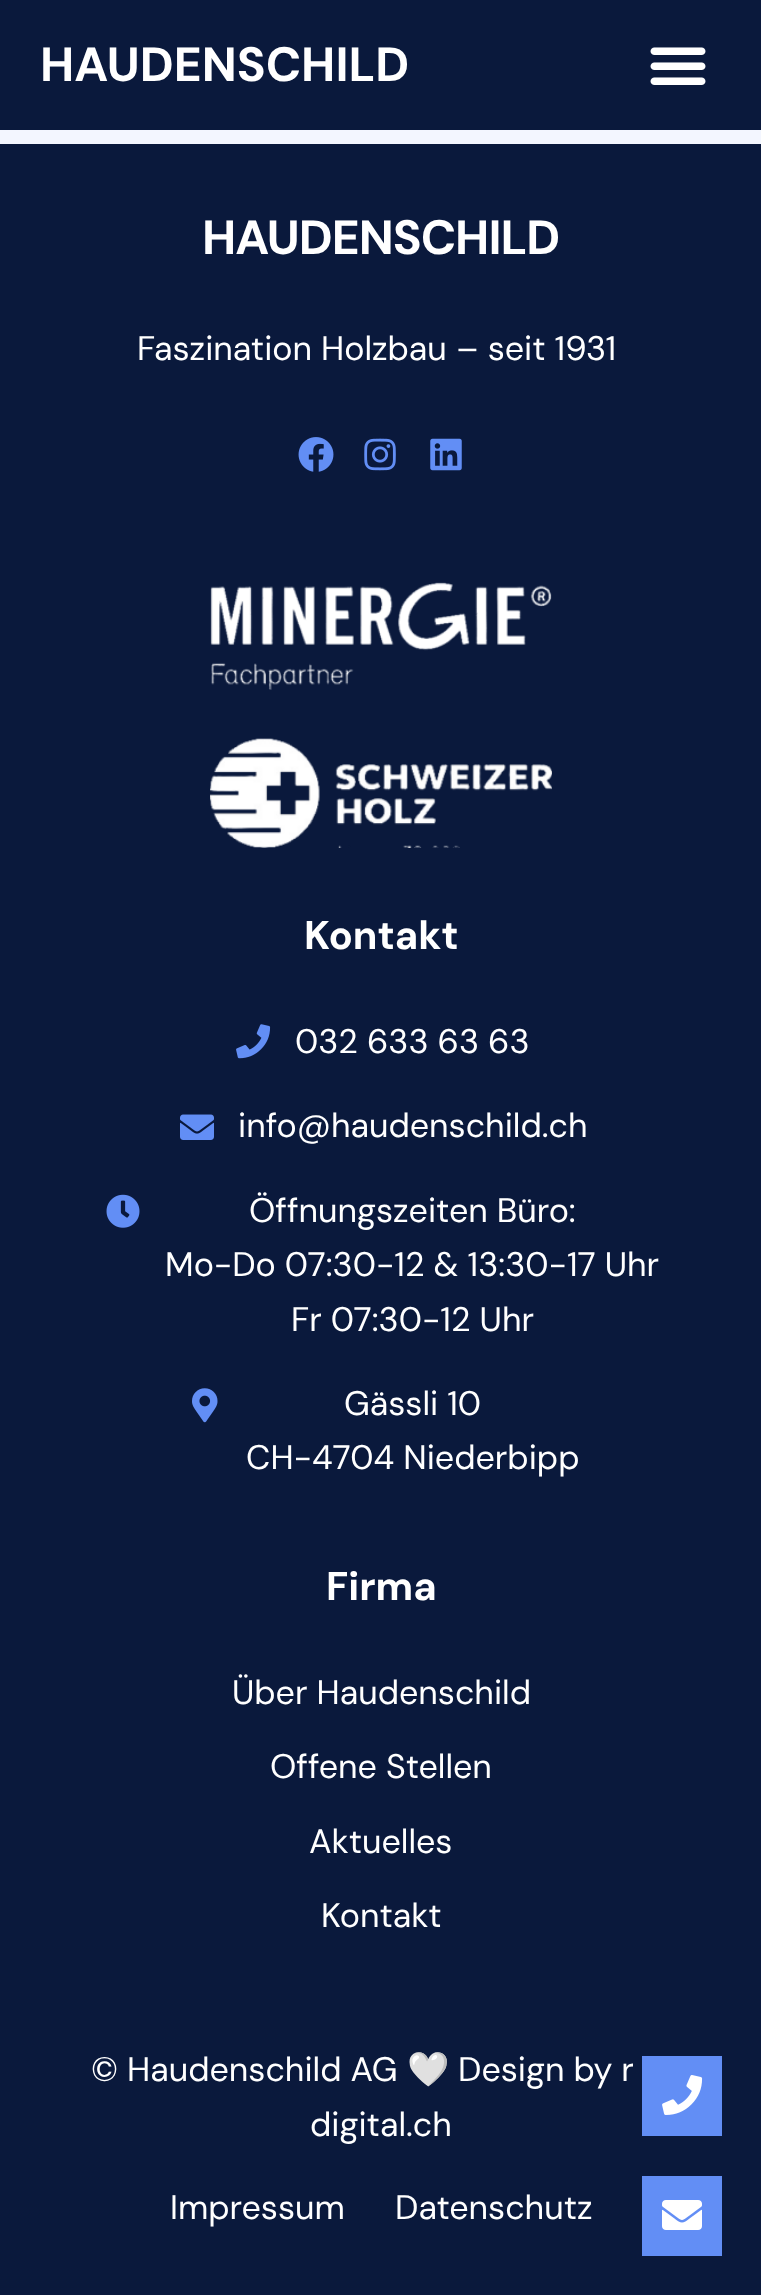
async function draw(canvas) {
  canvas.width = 761;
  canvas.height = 2295;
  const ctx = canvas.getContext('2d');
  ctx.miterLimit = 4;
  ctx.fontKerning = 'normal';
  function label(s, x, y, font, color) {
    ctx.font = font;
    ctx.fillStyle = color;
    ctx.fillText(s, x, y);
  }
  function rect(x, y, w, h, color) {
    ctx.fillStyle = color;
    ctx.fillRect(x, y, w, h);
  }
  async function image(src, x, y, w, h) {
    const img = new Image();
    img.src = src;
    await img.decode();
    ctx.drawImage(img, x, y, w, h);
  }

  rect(0, 0, 761, 2295, '#f3f6ff');
  rect(0, 0, 761, 130, '#0a193c');
  label('HAUDENSCHILD', 40, 81, 'bold 48px DM Sans', '#fff');
  await image('assets/img1.png', 650, 47, 56, 38);
  rect(0, 144, 761, 2151, '#0a193c');
  rect(642, 2056, 80, 80, '#628ef5');
  await image('assets/img2.png', 662, 2075, 41, 40);
  rect(642, 2176, 80, 80, '#628ef5');
  await image('assets/img3.png', 662, 2200, 40, 30);
  ctx.letterSpacing = '-1px';
  label('HAUDENSCHILD', 202, 254, 'bold 48px DM Sans', '#fff');
  ctx.letterSpacing = '0px';
  label('Faszination Holzbau – seit 1931', 137, 360, '34px DM Sans', '#fff');
  await image('assets/img4.png', 298, 437, 36, 35);
  await image('assets/img5.png', 364, 438, 32, 33);
  await image('assets/img6.png', 430, 438, 32, 33);
  await image('assets/img7.png', 210, 582, 342, 108);
  await image('assets/img8.png', 210, 738, 342, 110);
  label('Kontakt', 304, 949, 'bold 40px DM Sans', '#fff');
  await image('assets/img9.png', 236, 1024, 35, 35);
  label('032 633 63 63', 295, 1053, '34px DM Sans', '#fff');
  await image('assets/img10.png', 180, 1114, 34, 26);
  label('info@haudenschild.ch', 238, 1137, '34px DM Sans', '#fff');
  await image('assets/img11.png', 106, 1194, 34, 34);
  label('Öffnungszeiten Büro:', 249, 1222, '34px DM Sans', '#fff');
  label('Mo-Do 07:30-12 & 13:30-17 Uhr', 165, 1276, '34px DM Sans', '#fff');
  label('Fr 07:30-12 Uhr', 291, 1331, '34px DM Sans', '#fff');
  await image('assets/img12.png', 192, 1388, 26, 35);
  label('Gässli 10', 344, 1415, '34px DM Sans', '#fff');
  label('CH-4704 Niederbipp', 246, 1469, '34px DM Sans', '#fff');
  label('Firma', 326, 1600, 'bold 40px DM Sans', '#fff');
  label('Über Haudenschild', 232, 1704, '34px DM Sans', '#fff');
  label('Offene Stellen', 270, 1778, '34px DM Sans', '#fff');
  label('Aktuelles', 309, 1853, '34px DM Sans', '#fff');
  label('Kontakt', 321, 1927, '34px DM Sans', '#fff');
  label('© Haudenschild AG', 91, 2081, '34px DM Sans', '#fff');
  label('🤍', 407, 2081, '34px Noto Color Emoji', '#fff');
  label('Design by r', 458, 2081, '34px DM Sans', '#fff');
  label('digital.ch', 310, 2136, '34px DM Sans', '#fff');
  label('Impressum', 170, 2219, '34px DM Sans', '#fff');
  label('Datenschutz', 395, 2219, '34px DM Sans', '#fff');
}

draw(document.querySelector('canvas'));
